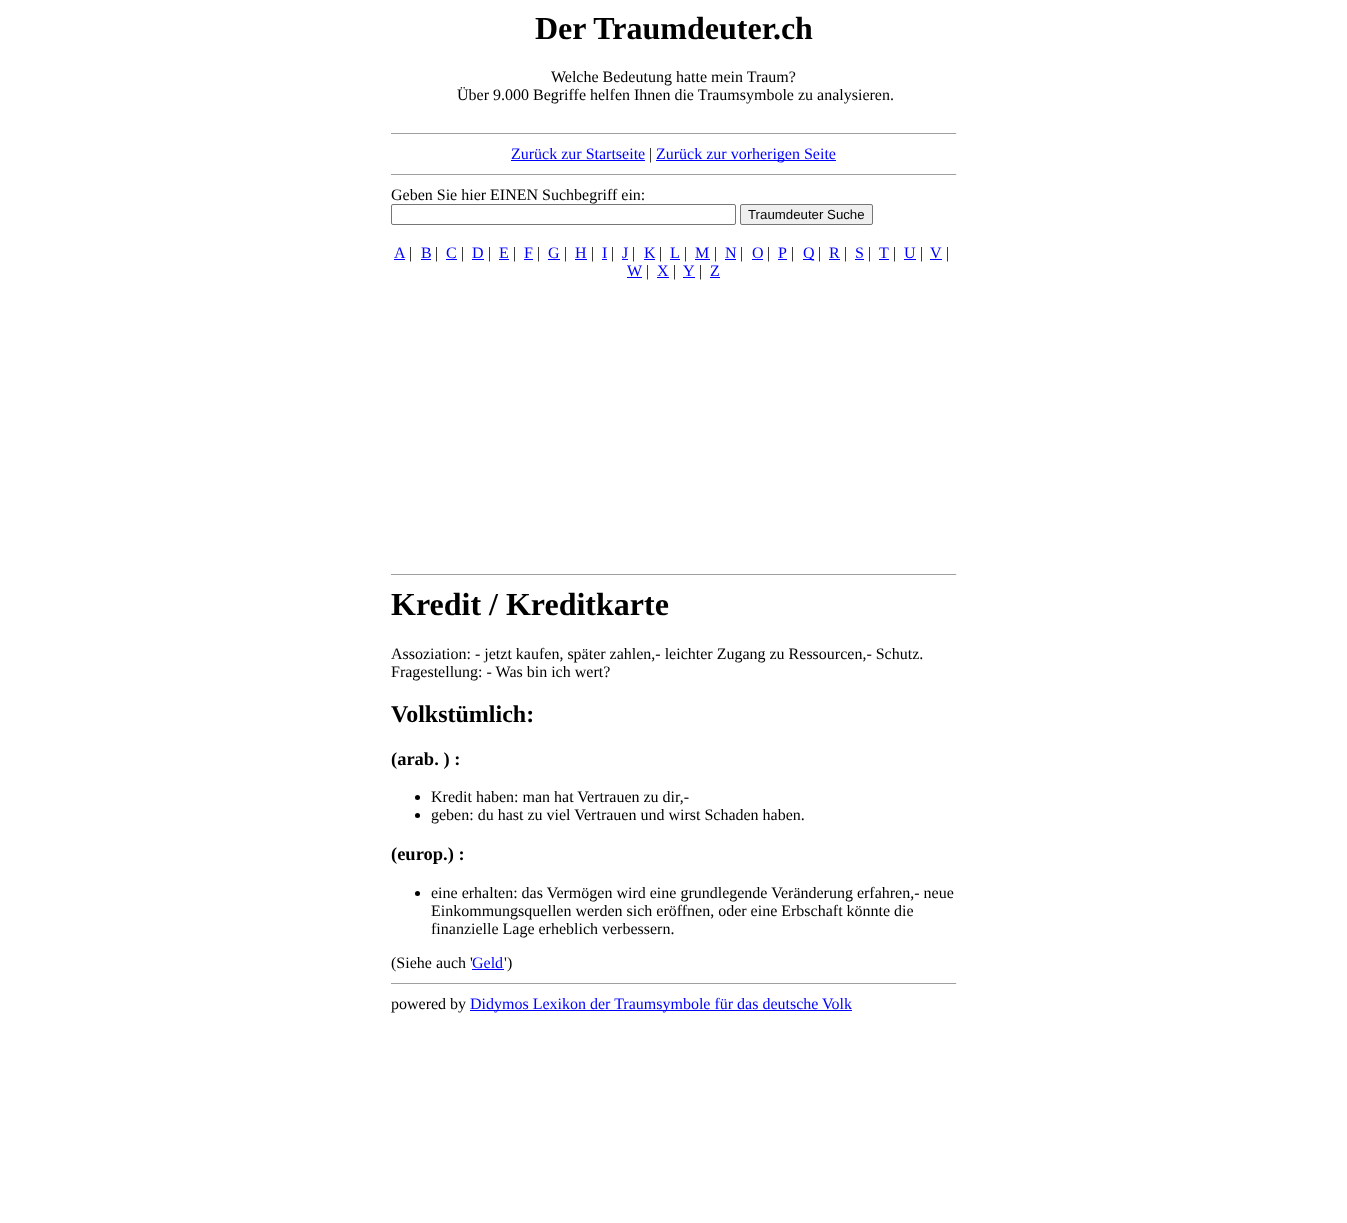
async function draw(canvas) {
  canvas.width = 1347;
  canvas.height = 1223;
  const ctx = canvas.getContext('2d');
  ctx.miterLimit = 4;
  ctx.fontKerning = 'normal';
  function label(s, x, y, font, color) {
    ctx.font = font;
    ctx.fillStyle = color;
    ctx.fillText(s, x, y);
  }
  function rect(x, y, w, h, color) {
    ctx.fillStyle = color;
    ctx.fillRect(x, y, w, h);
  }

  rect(0, 0, 1347, 1223, '#fff');
  label('Der Traumdeuter.ch', 535, 39, 'bold 32px Liberation Serif', '#000');
  label('Welche Bedeutung hatte mein Traum?', 551, 82, '16px Liberation Serif', '#000');
  label('Über 9.000 Begriffe helfen Ihnen die Traumsymbole zu analysieren.', 457, 100, '16px Liberation Serif', '#000');
  rect(391, 133, 566, 1, '#9f9f9f');
  rect(956, 133, 1, 1, '#eee');
  label('Zurück zur Startseite', 511, 159, '16px Liberation Serif', '#00f');
  rect(511, 160, 134, 1, '#00f');
  label('|', 649, 159, '16px Liberation Serif', '#000');
  rect(656, 160, 180, 1, '#00f');
  label('Zurück zur vorherigen Seite', 656, 159, '16px Liberation Serif', '#00f');
  rect(391, 174, 566, 1, '#9f9f9f');
  rect(956, 174, 1, 1, '#eee');
  label('Geben Sie hier EINEN Suchbegriff ein:', 391, 200, '16px Liberation Serif', '#000');
  ctx.beginPath();
  ctx.roundRect(391.5, 204.5, 344, 20, 1.5);
  ctx.strokeStyle = '#767676';
  ctx.stroke();
  ctx.fillStyle = '#efefef';
  ctx.beginPath();
  ctx.roundRect(740.5, 204.5, 132, 20, 1.5);
  ctx.fill();
  ctx.stroke();
  label('Traumdeuter Suche', 748, 219, '13.25px Liberation Sans', '#000');
  label('A', 394, 258, '16px Liberation Serif', '#00f');
  rect(394, 259, 11, 1, '#00f');
  label('|', 409, 258, '16px Liberation Serif', '#000');
  label('B', 421, 258, '16px Liberation Serif', '#00f');
  rect(421, 259, 10, 1, '#00f');
  label('|', 435, 258, '16px Liberation Serif', '#000');
  label('C', 446, 258, '16px Liberation Serif', '#00f');
  rect(446, 259, 11, 1, '#00f');
  label('|', 461, 258, '16px Liberation Serif', '#000');
  label('D', 472, 258, '16px Liberation Serif', '#00f');
  rect(472, 259, 12, 1, '#00f');
  label('|', 488, 258, '16px Liberation Serif', '#000');
  label('E', 499, 258, '16px Liberation Serif', '#00f');
  rect(499, 259, 10, 1, '#00f');
  label('|', 513, 258, '16px Liberation Serif', '#000');
  label('F', 524, 258, '16px Liberation Serif', '#00f');
  rect(524, 259, 9, 1, '#00f');
  label('|', 537, 258, '16px Liberation Serif', '#000');
  label('G', 548, 258, '16px Liberation Serif', '#00f');
  rect(548, 259, 12, 1, '#00f');
  label('|', 564, 258, '16px Liberation Serif', '#000');
  label('H', 575, 258, '16px Liberation Serif', '#00f');
  rect(575, 259, 12, 1, '#00f');
  label('|', 591, 258, '16px Liberation Serif', '#000');
  label('I', 602, 258, '16px Liberation Serif', '#00f');
  rect(602, 259, 5, 1, '#00f');
  label('|', 611, 258, '16px Liberation Serif', '#000');
  label('J', 622, 258, '16px Liberation Serif', '#00f');
  rect(622, 259, 6, 1, '#00f');
  label('|', 632, 258, '16px Liberation Serif', '#000');
  label('K', 644, 258, '16px Liberation Serif', '#00f');
  rect(644, 259, 11, 1, '#00f');
  label('|', 659, 258, '16px Liberation Serif', '#000');
  label('L', 670, 258, '16px Liberation Serif', '#00f');
  rect(670, 259, 10, 1, '#00f');
  label('|', 684, 258, '16px Liberation Serif', '#000');
  label('M', 695, 258, '16px Liberation Serif', '#00f');
  rect(695, 259, 15, 1, '#00f');
  label('|', 714, 258, '16px Liberation Serif', '#000');
  label('N', 725, 258, '16px Liberation Serif', '#00f');
  rect(725, 259, 11, 1, '#00f');
  label('|', 740, 258, '16px Liberation Serif', '#000');
  label('O', 752, 258, '16px Liberation Serif', '#00f');
  rect(752, 259, 11, 1, '#00f');
  label('|', 767, 258, '16px Liberation Serif', '#000');
  label('P', 778, 258, '16px Liberation Serif', '#00f');
  rect(778, 259, 9, 1, '#00f');
  label('|', 791, 258, '16px Liberation Serif', '#000');
  rect(803, 259, 11, 1, '#00f');
  label('Q', 803, 258, '16px Liberation Serif', '#00f');
  label('|', 818, 258, '16px Liberation Serif', '#000');
  label('R', 829, 258, '16px Liberation Serif', '#00f');
  rect(829, 259, 11, 1, '#00f');
  label('|', 844, 258, '16px Liberation Serif', '#000');
  label('S', 855, 258, '16px Liberation Serif', '#00f');
  rect(855, 259, 9, 1, '#00f');
  label('|', 868, 258, '16px Liberation Serif', '#000');
  label('T', 879, 258, '16px Liberation Serif', '#00f');
  rect(879, 259, 10, 1, '#00f');
  label('|', 893, 258, '16px Liberation Serif', '#000');
  label('U', 904, 258, '16px Liberation Serif', '#00f');
  rect(904, 259, 12, 1, '#00f');
  label('|', 920, 258, '16px Liberation Serif', '#000');
  label('V', 930, 258, '16px Liberation Serif', '#00f');
  rect(930, 259, 12, 1, '#00f');
  label('|', 946, 258, '16px Liberation Serif', '#000');
  label('W', 627, 276, '16px Liberation Serif', '#00f');
  rect(627, 277, 15, 1, '#00f');
  label('|', 646, 276, '16px Liberation Serif', '#000');
  label('X', 657, 276, '16px Liberation Serif', '#00f');
  rect(657, 277, 12, 1, '#00f');
  label('|', 673, 276, '16px Liberation Serif', '#000');
  label('Y', 683, 276, '16px Liberation Serif', '#00f');
  rect(683, 277, 12, 1, '#00f');
  label('|', 699, 276, '16px Liberation Serif', '#000');
  label('Z', 710, 276, '16px Liberation Serif', '#00f');
  rect(710, 277, 10, 1, '#00f');
  rect(391, 574, 566, 1, '#9f9f9f');
  rect(956, 574, 1, 1, '#eee');
  label('Kredit / Kreditkarte', 391, 615, 'bold 32px Liberation Serif', '#000');
  label('Assoziation: - jetzt kaufen, später zahlen,- leichter Zugang zu Ressourcen,- Schutz.', 391, 659, '16px Liberation Serif', '#000');
  label('Fragestellung: - Was bin ich wert?', 391, 677, '16px Liberation Serif', '#000');
  label('Volkstümlich:', 391, 722, 'bold 24px Liberation Serif', '#000');
  label('(arab. ) :', 391, 765, 'bold 18.5px Liberation Serif', '#000');
  ctx.beginPath();
  ctx.arc(417.5, 797.5, 2.5, 0, 2 * Math.PI);
  ctx.fill();
  label('Kredit haben: man hat Vertrauen zu dir,-', 431, 802, '16px Liberation Serif', '#000');
  ctx.beginPath();
  ctx.arc(417.5, 815.5, 2.5, 0, 2 * Math.PI);
  ctx.fill();
  label('geben: du hast zu viel Vertrauen und wirst Schaden haben.', 431, 820, '16px Liberation Serif', '#000');
  label('(europ.) :', 391, 860, 'bold 18.5px Liberation Serif', '#000');
  ctx.beginPath();
  ctx.arc(417.5, 893.5, 2.5, 0, 2 * Math.PI);
  ctx.fill();
  label('eine erhalten: das Vermögen wird eine grundlegende Veränderung erfahren,- neue', 431, 898, '16px Liberation Serif', '#000');
  label('Einkommungsquellen werden sich eröffnen, oder eine Erbschaft könnte die', 431, 916, '16px Liberation Serif', '#000');
  label('finanzielle Lage erheblich verbessern.', 431, 934, '16px Liberation Serif', '#000');
  label('(Siehe auch \'', 391, 968, '16px Liberation Serif', '#000');
  label('Geld', 472, 968, '16px Liberation Serif', '#00f');
  rect(472, 969, 32, 1, '#00f');
  label('\')', 504, 968, '16px Liberation Serif', '#000');
  rect(391, 983, 566, 1, '#9f9f9f');
  rect(956, 983, 1, 1, '#eee');
  label('powered by', 391, 1009, '16px Liberation Serif', '#000');
  rect(470, 1010, 382, 1, '#00f');
  label('Didymos Lexikon der Traumsymbole für das deutsche Volk', 470, 1009, '16px Liberation Serif', '#00f');
}

draw(document.querySelector('canvas'));
